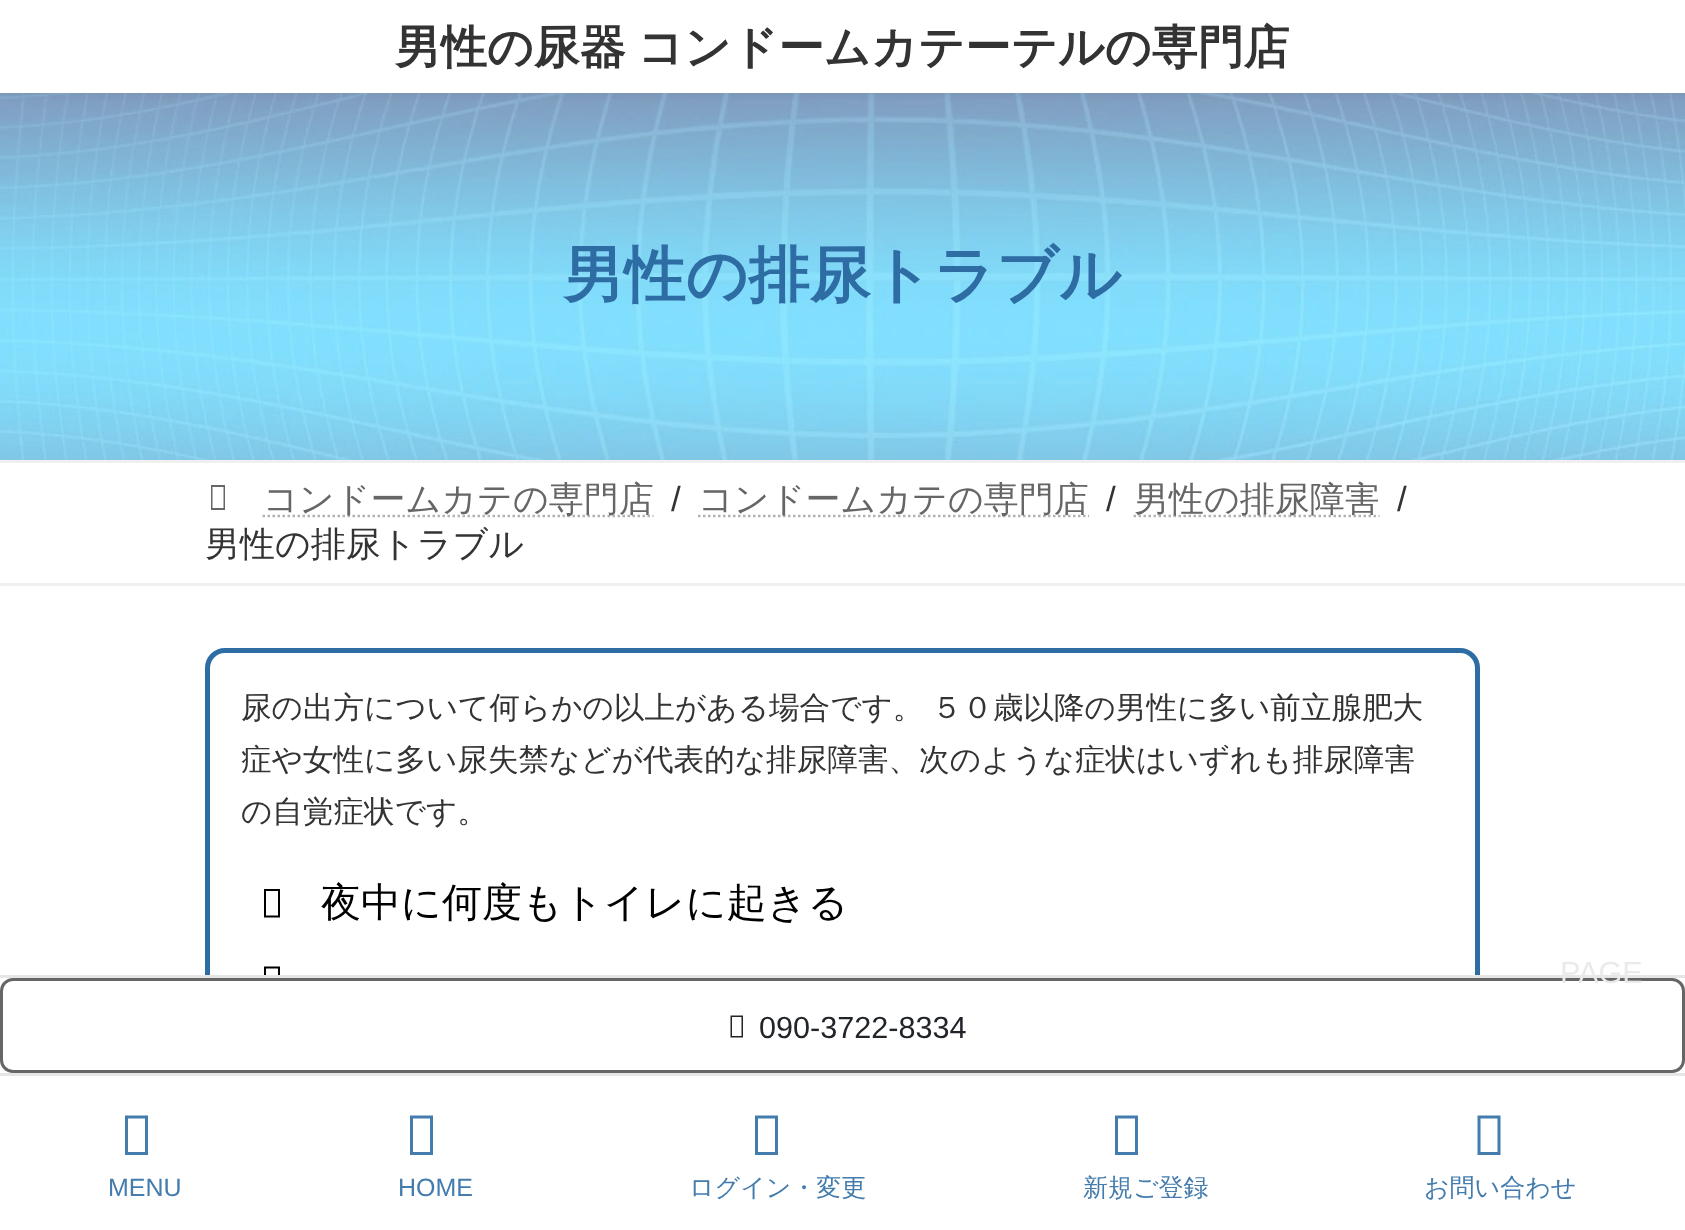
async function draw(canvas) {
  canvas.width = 1685;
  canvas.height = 1230;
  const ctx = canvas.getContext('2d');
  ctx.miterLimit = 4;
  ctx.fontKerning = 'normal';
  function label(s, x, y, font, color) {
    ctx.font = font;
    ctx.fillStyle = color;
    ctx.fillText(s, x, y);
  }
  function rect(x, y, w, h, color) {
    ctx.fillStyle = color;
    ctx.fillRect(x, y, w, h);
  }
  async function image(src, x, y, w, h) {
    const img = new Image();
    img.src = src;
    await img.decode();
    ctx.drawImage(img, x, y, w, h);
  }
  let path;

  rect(0, 0, 1685, 1230, '#fff');
  await image('assets/img1.png', 0, 93, 1685, 367);
  ctx.fillStyle = '#0000000d';
  ctx.filter = 'blur(4px)';
  ctx.beginPath();
  ctx.rect(0, 3, 1685, 92);
  ctx.fill();
  ctx.filter = 'none';
  rect(0, 0, 1685, 93, '#fff');
  ctx.wordSpacing = '-2px';
  label('男性の尿器 コンドームカテーテルの専門店', 395, 63, 'bold 45.9px WenQuanYi Zen Hei', '#333');
  ctx.wordSpacing = '0px';
  label('男性の排尿トラブル', 563, 296, 'bold 61.25px WenQuanYi Zen Hei', '#2e6da4');
  rect(0, 460, 1685, 3, '#f0f0f0');
  rect(0, 583, 1685, 3, '#f0f0f0');
  ctx.fillStyle = '#666';
  path = new Path2D('M211 510V485H225V510ZM212.5 508H223.5V487H212.5Z');
  ctx.fill(path);
  path = new Path2D('M262.5 516H653.5');
  ctx.strokeStyle = '#b3b3b3';
  ctx.lineWidth = 2.5;
  ctx.setLineDash([2.5, 2.5]);
  ctx.stroke(path);
  label('コンドームカテの専門店', 263, 511, '500 35px WenQuanYi Zen Hei', '#666');
  label('/', 671, 511, '35px Liberation Sans', '#333');
  path = new Path2D('M698 516H1089');
  ctx.stroke(path);
  label('コンドームカテの専門店', 698, 511, '500 35px WenQuanYi Zen Hei', '#666');
  label('/', 1106, 511, '35px Liberation Sans', '#333');
  path = new Path2D('M1133.5 516H1379.5');
  ctx.stroke(path);
  label('男性の排尿障害', 1134, 511, '500 35px WenQuanYi Zen Hei', '#666');
  label('/', 1397, 511, '35px Liberation Sans', '#333');
  label('男性の排尿トラブル', 205, 556, '500 35px WenQuanYi Zen Hei', '#333');
  ctx.beginPath();
  ctx.roundRect(207.5, 650.5, 1270, 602, 17.5);
  ctx.strokeStyle = '#2e6da4';
  ctx.lineWidth = 5;
  ctx.setLineDash([]);
  ctx.stroke();
  ctx.wordSpacing = '-1px';
  label('尿の出方について何らかの以上がある場合です。 ５０歳以降の男性に多い前立腺肥大', 241, 718, '500 30.6px WenQuanYi Zen Hei', '#333');
  ctx.wordSpacing = '0px';
  label('症や女性に多い尿失禁などが代表的な排尿障害、次のような症状はいずれも排尿障害', 241, 770, '500 30.6px WenQuanYi Zen Hei', '#333');
  label('の自覚症状です。', 241, 822, '500 30.6px WenQuanYi Zen Hei', '#333');
  ctx.fillStyle = '#000';
  path = new Path2D('M264 917.5V889H280V917.5ZM266 915.5H278V891H266Z');
  ctx.fill(path);
  label('夜中に何度もトイレに起きる', 321, 916, '500 40px WenQuanYi Zen Hei', '#000');
  path = new Path2D('M264 995V966.5H280V995ZM266 993H278V968.5H266Z');
  ctx.fill(path);
  rect(0, 975, 1685, 3, '#e6e6e6');
  rect(205, 978, 1275, 252, '#fff');
  ctx.beginPath();
  ctx.roundRect(1.5, 979.5, 1682, 92, 11.5);
  ctx.strokeStyle = '#666';
  ctx.lineWidth = 3;
  ctx.stroke();
  label('PAGE', 1560, 983, '30.6px Liberation Sans', '#eaeaea');
  rect(0, 1073, 1685, 3, '#e6e6e6');
  ctx.fillStyle = '#212529';
  path = new Path2D('M730.5 1037.5V1015.5H743V1037.5ZM732 1036H741.5V1017H732Z');
  ctx.fill(path);
  label('090-3722-8334', 759, 1038, '30.6px Liberation Sans', '#212529');
  ctx.fillStyle = '#437cad';
  path = new Path2D('M125 1155V1115.5H148V1155ZM128 1152H145V1118.5H128Z');
  ctx.fill(path);
  label('MENU', 108, 1196, '25px Liberation Sans', '#437cad');
  path = new Path2D('M410 1155V1115.5H433V1155ZM413 1152H430V1118.5H413Z');
  ctx.fill(path);
  label('HOME', 398, 1196, '25px Liberation Sans', '#437cad');
  path = new Path2D('M755 1155V1115.5H778V1155ZM758 1152H775V1118.5H758Z');
  ctx.fill(path);
  label('ログイン・変更', 689, 1196, '500 25px WenQuanYi Zen Hei', '#437cad');
  path = new Path2D('M1115 1155V1115.5H1138V1155ZM1118 1152H1135V1118.5H1118Z');
  ctx.fill(path);
  label('新規ご登録', 1083, 1196, '500 25px WenQuanYi Zen Hei', '#437cad');
  path = new Path2D('M1477.5 1155V1115.5H1500.5V1155ZM1480.5 1152H1497.5V1118.5H1480.5Z');
  ctx.fill(path);
  label('お問い合わせ', 1424, 1196, '500 25px WenQuanYi Zen Hei', '#437cad');
}

draw(document.querySelector('canvas'));
